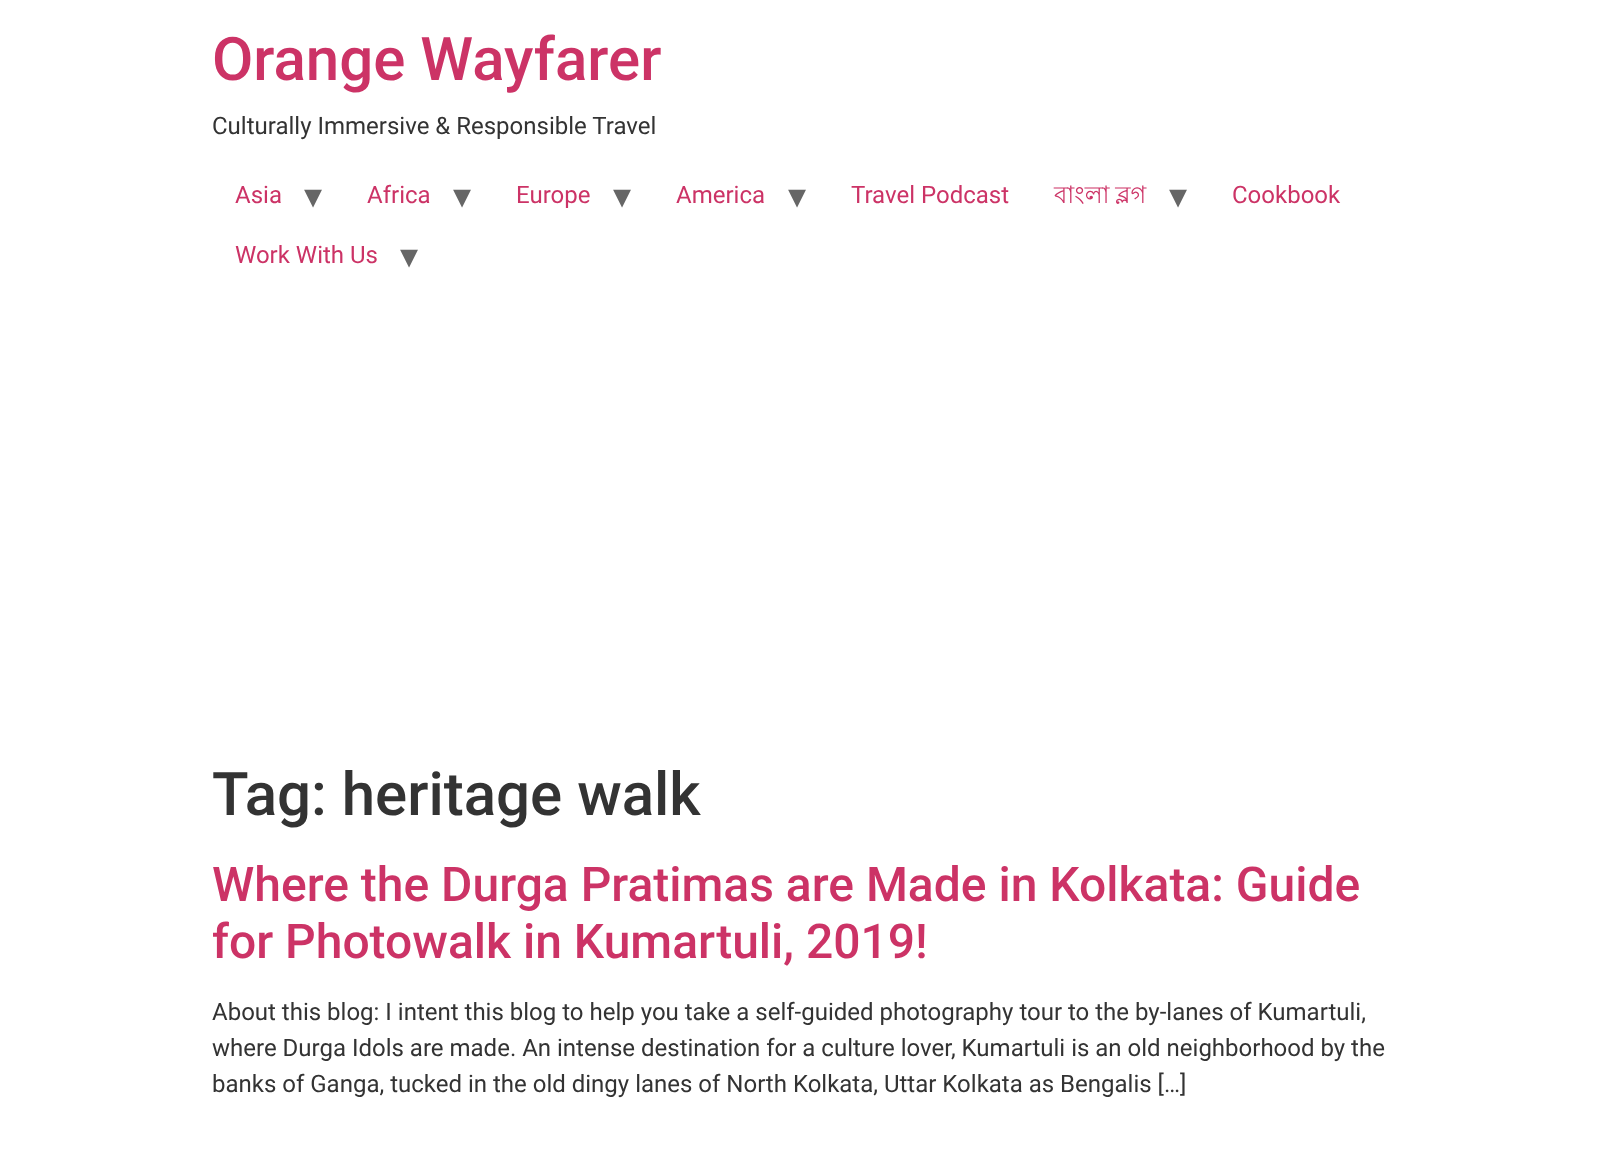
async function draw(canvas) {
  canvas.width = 1624;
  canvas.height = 1169;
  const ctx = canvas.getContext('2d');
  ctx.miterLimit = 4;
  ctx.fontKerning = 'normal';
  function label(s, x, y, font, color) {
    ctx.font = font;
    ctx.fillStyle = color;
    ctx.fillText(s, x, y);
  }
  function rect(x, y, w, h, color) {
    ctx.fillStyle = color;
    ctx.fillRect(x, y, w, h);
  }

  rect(0, 0, 1624, 1169, '#fff');
  label('Orange Wayfarer', 212, 80, '500 60px Roboto', '#c36');
  label('Culturally Immersive & Responsible Travel', 212, 134, '24px Roboto', '#333');
  label('Asia', 235, 203, '24px Roboto', '#c36');
  label('▾', 304, 208, '36px DejaVu Sans', '#666');
  label('Africa', 367, 203, '24px Roboto', '#c36');
  label('▾', 453, 208, '36px DejaVu Sans', '#666');
  label('Europe', 516, 203, '24px Roboto', '#c36');
  label('▾', 613, 208, '36px DejaVu Sans', '#666');
  label('America', 676, 203, '24px Roboto', '#c36');
  label('▾', 788, 208, '36px DejaVu Sans', '#666');
  label('Travel Podcast', 851, 203, '24px Roboto', '#c36');
  ctx.wordSpacing = '-1px';
  label('বাংলা ব্লগ', 1054, 203, '24px Lohit Bengali', '#c36');
  ctx.wordSpacing = '0px';
  label('▾', 1169, 208, '36px DejaVu Sans', '#666');
  label('Cookbook', 1232, 203, '24px Roboto', '#c36');
  label('Work With Us', 235, 263, '24px Roboto', '#c36');
  label('▾', 400, 268, '36px DejaVu Sans', '#666');
  label('Tag: heritage walk', 212, 815, '500 60px Roboto', '#333');
  label('Where the Durga Pratimas are Made in Kolkata: Guide', 212, 901, '500 48px Roboto', '#c36');
  label('for Photowalk in Kumartuli, 2019!', 212, 958, '500 48px Roboto', '#c36');
  label('About this blog: I intent this blog to help you take a self-guided photography tour to the by-lanes of Kumartuli,', 212, 1020, '24px Roboto', '#333');
  label('where Durga Idols are made. An intense destination for a culture lover, Kumartuli is an old neighborhood by the', 212, 1056, '24px Roboto', '#333');
  label('banks of Ganga, tucked in the old dingy lanes of North Kolkata, Uttar Kolkata as Bengalis […]', 212, 1092, '24px Roboto', '#333');
}

draw(document.querySelector('canvas'));
